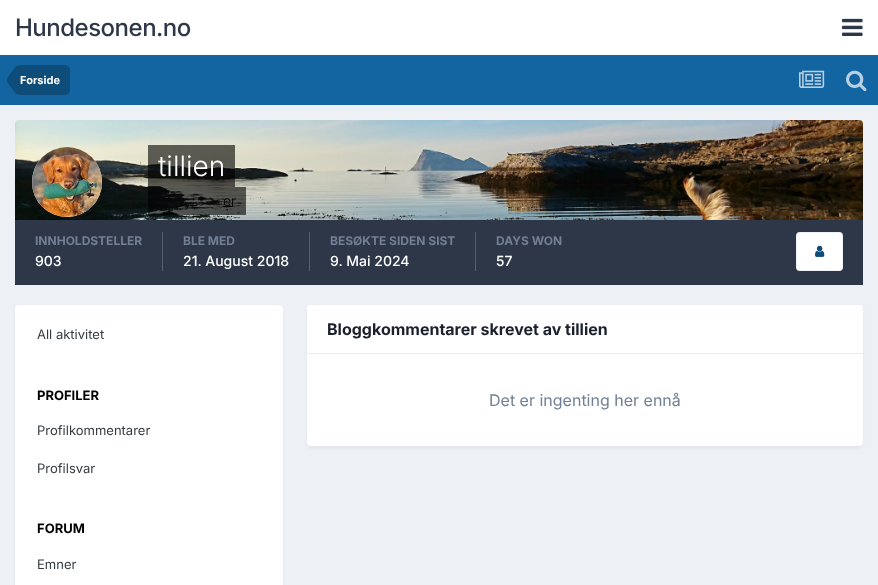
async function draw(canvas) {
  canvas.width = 878;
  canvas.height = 585;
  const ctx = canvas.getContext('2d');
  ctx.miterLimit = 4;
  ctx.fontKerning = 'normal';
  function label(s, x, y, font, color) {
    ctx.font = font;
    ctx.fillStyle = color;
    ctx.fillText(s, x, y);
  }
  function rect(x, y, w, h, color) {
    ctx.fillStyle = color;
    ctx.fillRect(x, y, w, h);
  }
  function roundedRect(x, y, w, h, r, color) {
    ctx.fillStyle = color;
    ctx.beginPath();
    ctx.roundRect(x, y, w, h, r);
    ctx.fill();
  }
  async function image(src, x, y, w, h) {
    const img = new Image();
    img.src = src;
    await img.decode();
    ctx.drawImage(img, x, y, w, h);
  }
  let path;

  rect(0, 0, 878, 585, '#edf0f4');
  rect(0, 0, 878, 55, '#fff');
  ctx.letterSpacing = '-0.5px';
  label('Hundesonen.no', 15, 36, '500 24px Inter', '#2d3748');
  await image('assets/img1.png', 842, 18, 21, 18);
  rect(0, 55, 878, 50, '#1265a1');
  ctx.fillStyle = '#0e4c79';
  ctx.beginPath();
  ctx.roundRect(20, 65, 50, 30, [0, 5, 5, 0]);
  ctx.fill();
  path = new Path2D('M20 80V95C15.5 95 13.5 90.5 11 87C9.5 85 7 83 7 80ZM20 80H7C7 77 9.5 75 11 73C13.5 69.5 15.5 65 20 65Z');
  ctx.fill(path);
  ctx.letterSpacing = '0px';
  label('Forside', 20, 84, 'bold 11px Inter', '#fff');
  await image('assets/img2.png', 799, 70, 26, 18);
  await image('assets/img3.png', 846, 70, 21, 22);
  await image('assets/img4.png', 15, 120, 848, 100);
  ctx.beginPath();
  ctx.arc(67, 182, 35, 0, 2 * Math.PI);
  ctx.fill();
  await image('assets/img5.png', 32, 147, 70, 70);
  rect(148, 145, 87, 42, '#00000099');
  label('tillien', 158, 176, '300 28px Inter', '#fff');
  rect(148, 187, 98, 28, '#00000099');
  label('er', 223, 206, '300 14px Inter', '#000');
  rect(15, 220, 848, 65, '#2d3748');
  rect(162, 232, 1, 39, '#575f6d');
  label('INNHOLDSTELLER', 35, 245, 'bold 12px Inter', '#718096');
  label('903', 35, 266, '500 14px Inter', '#fff');
  rect(309, 232, 1, 39, '#575f6d');
  label('BLE MED', 183, 245, 'bold 12px Inter', '#718096');
  label('21. August 2018', 183, 266, '500 14px Inter', '#fff');
  rect(475, 232, 1, 39, '#575f6d');
  label('BESØKTE SIDEN SIST', 330, 245, 'bold 12px Inter', '#718096');
  label('9. Mai 2024', 330, 266, '500 14px Inter', '#fff');
  label('DAYS WON', 496, 245, 'bold 12px Inter', '#718096');
  label('57', 496, 266, '500 14px Inter', '#fff');
  roundedRect(796, 232, 47, 39, 4, '#fff');
  ctx.beginPath();
  ctx.roundRect(796.5, 232.5, 46, 38, 3.5);
  ctx.strokeStyle = '#0e4c7912';
  ctx.stroke();
  await image('assets/img6.png', 815, 245, 10, 12);
  ctx.fillStyle = '#2d37481a';
  ctx.filter = 'blur(2px)';
  ctx.beginPath();
  ctx.roundRect(16, 308, 266, 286, 3);
  ctx.fill();
  ctx.filter = 'none';
  roundedRect(15, 305, 268, 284, 4, '#fff');
  label('All aktivitet', 37, 339, '13px Inter', '#353c41');
  label('PROFILER', 37, 400, 'bold 13px Inter', '#000');
  label('Profilkommentarer', 37, 435, '13px Inter', '#353c41');
  label('Profilsvar', 37, 473, '13px Inter', '#353c41');
  label('FORUM', 37, 533, 'bold 13px Inter', '#000');
  label('Emner', 37, 569, '13px Inter', '#353c41');
  ctx.fillStyle = '#2d37481a';
  ctx.filter = 'blur(2px)';
  ctx.beginPath();
  ctx.roundRect(308, 308, 554, 139, 3);
  ctx.fill();
  ctx.filter = 'none';
  roundedRect(307, 305, 556, 141, 4, '#fff');
  ctx.beginPath();
  ctx.roundRect(307, 305, 556, 49, [4, 4, 0, 0]);
  ctx.fill();
  rect(307, 353, 556, 1, '#eaecef');
  label('Bloggkommentarer skrevet av tillien', 327, 335, 'bold 16px Inter', '#1a202c');
  label('Det er ingenting her ennå', 489, 406, '16px Inter', '#718096');
}

draw(document.querySelector('canvas'));
